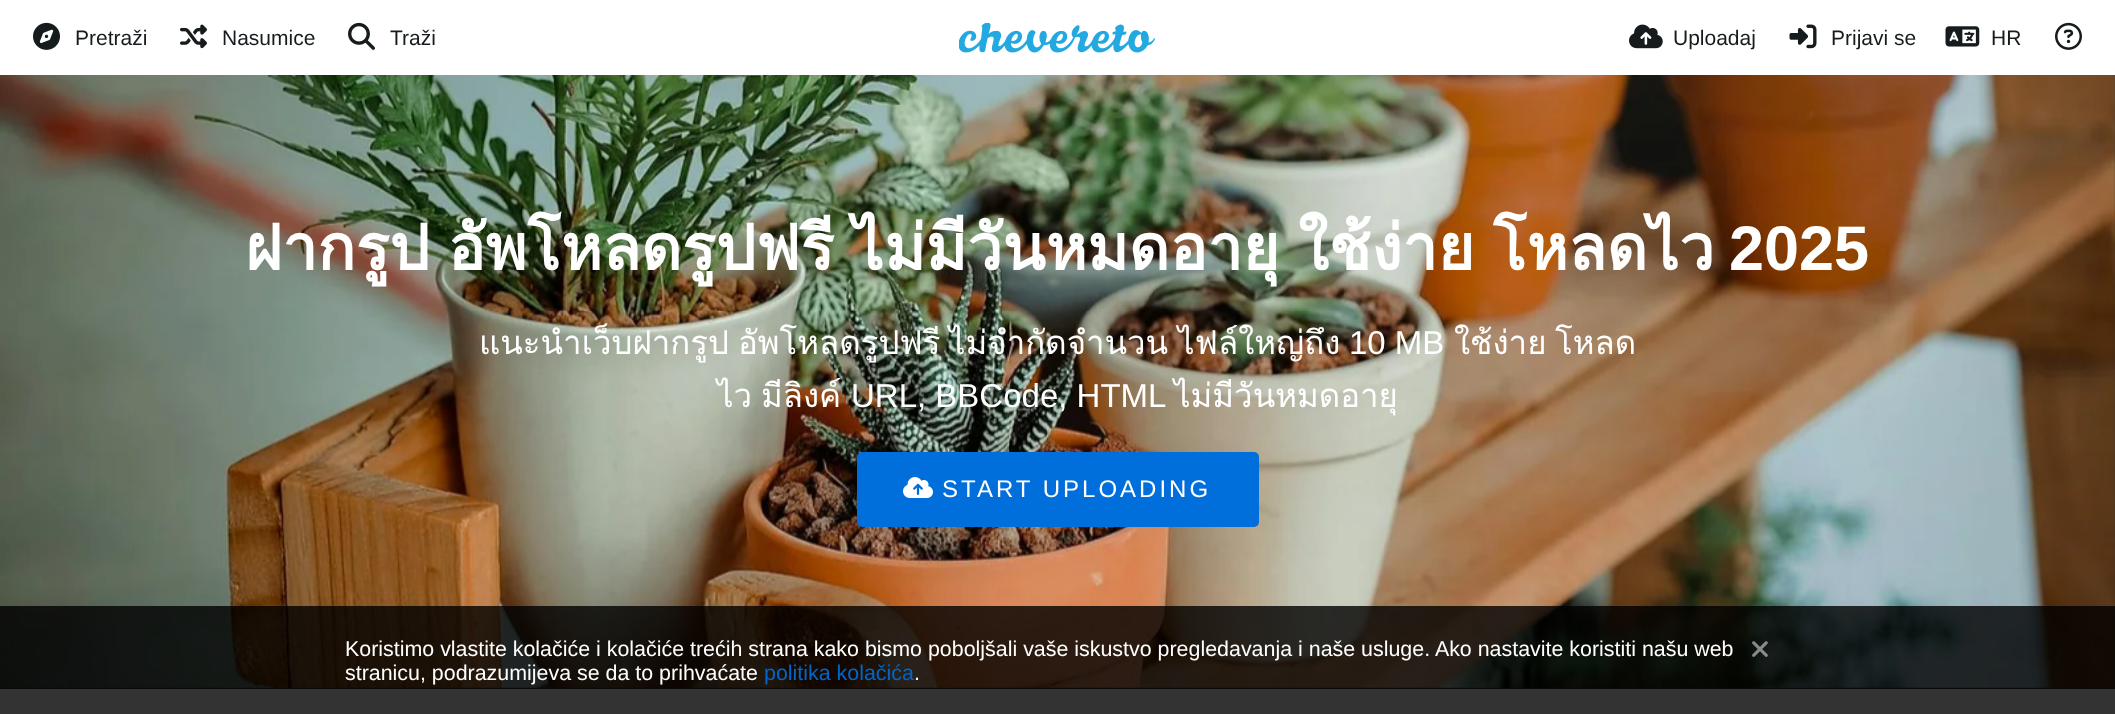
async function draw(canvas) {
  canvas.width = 2115;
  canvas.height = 714;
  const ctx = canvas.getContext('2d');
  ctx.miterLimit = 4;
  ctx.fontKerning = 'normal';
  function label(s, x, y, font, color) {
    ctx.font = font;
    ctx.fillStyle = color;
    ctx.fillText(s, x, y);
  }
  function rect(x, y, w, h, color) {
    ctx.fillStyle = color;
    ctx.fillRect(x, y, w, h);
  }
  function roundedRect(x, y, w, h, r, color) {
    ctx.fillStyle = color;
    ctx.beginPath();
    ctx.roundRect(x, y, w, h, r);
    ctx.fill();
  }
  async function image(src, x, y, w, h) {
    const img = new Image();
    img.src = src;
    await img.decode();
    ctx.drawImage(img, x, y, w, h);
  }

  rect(0, 0, 2115, 714, '#fff');
  await image('assets/img1.png', 33, 22, 27, 28);
  label('Pretraži', 75, 45, '21px Liberation Sans', '#161c1d');
  await image('assets/img2.png', 180, 24, 27, 25);
  label('Nasumice', 222, 45, '21px Liberation Sans', '#161c1d');
  await image('assets/img3.png', 348, 22, 27, 28);
  label('Traži', 390, 45, '21px Liberation Sans', '#161c1d');
  await image('assets/img4.png', 959, 23, 197, 30);
  await image('assets/img5.png', 1629, 24, 34, 25);
  label('Uploadaj', 1673, 45, '21px Liberation Sans', '#161c1d');
  await image('assets/img6.png', 1789, 24, 28, 25);
  label('Prijavi se', 1831, 45, '21px Liberation Sans', '#161c1d');
  await image('assets/img7.png', 1945, 26, 35, 21);
  label('HR', 1991, 45, '21px Liberation Sans', '#161c1d');
  await image('assets/img8.png', 2055, 22, 27, 28);
  rect(0, 75, 2115, 614, '#333');
  await image('assets/img9.png', 0, 75, 2115, 613);
  ctx.wordSpacing = '-3px';
  label('ฝากรูป อัพโหลดรูปฟรี ไม่มีวันหมดอายุ ใช้ง่าย โหลดไว', 245, 270, 'bold 63px Loma', '#fff');
  ctx.wordSpacing = '0px';
  label('2025', 1729, 270, 'bold 63px Liberation Sans', '#fff');
  label('แนะนำเว็บฝากรูป', 479, 354, '33px Loma', '#fff');
  label('อัพโหลดรูปฟรี', 738, 354, '33px Loma', '#fff');
  label('ไม่จำกัดจำนวน', 949, 354, '33px Loma', '#fff');
  label('ไฟล์ใหญ่ถึง', 1178, 354, '33px Loma', '#fff');
  label('10 MB', 1349, 354, '33px Liberation Sans', '#fff');
  label('ใช้ง่าย', 1454, 354, '33px Loma', '#fff');
  label('โหลด', 1555, 354, '33px Loma', '#fff');
  label('ไว', 717, 407, '33px Loma', '#fff');
  label('มีลิงค์', 761, 407, '33px Loma', '#fff');
  label('URL, BBCode, HTML', 851, 407, '33px Liberation Sans', '#fff');
  label('ไม่มีวันหมดอายุ', 1174, 407, '33px Loma', '#fff');
  roundedRect(857, 452, 402, 75, 5, '#006edb');
  await image('assets/img10.png', 903, 477, 30, 21);
  ctx.letterSpacing = '3px';
  label('START UPLOADING', 942, 497, '24px Liberation Sans', '#fff');
  rect(0, 606, 2115, 108, '#000000cc');
  ctx.letterSpacing = '0px';
  label('Koristimo vlastite kolačiće i kolačiće trećih strana kako bismo poboljšali vaše iskustvo pregledavanja i naše usluge. Ako nastavite koristiti našu web', 345, 656, '21.42px Liberation Sans', '#fff');
  label('stranicu, podrazumijeva se da to prihvaćate', 345, 680, '21.42px Liberation Sans', '#fff');
  label('politika kolačića', 764, 680, '21.42px Liberation Sans', '#06c');
  label('.', 914, 680, '21.42px Liberation Sans', '#fff');
  await image('assets/img11.png', 1752, 641, 16, 16);
}

draw(document.querySelector('canvas'));
